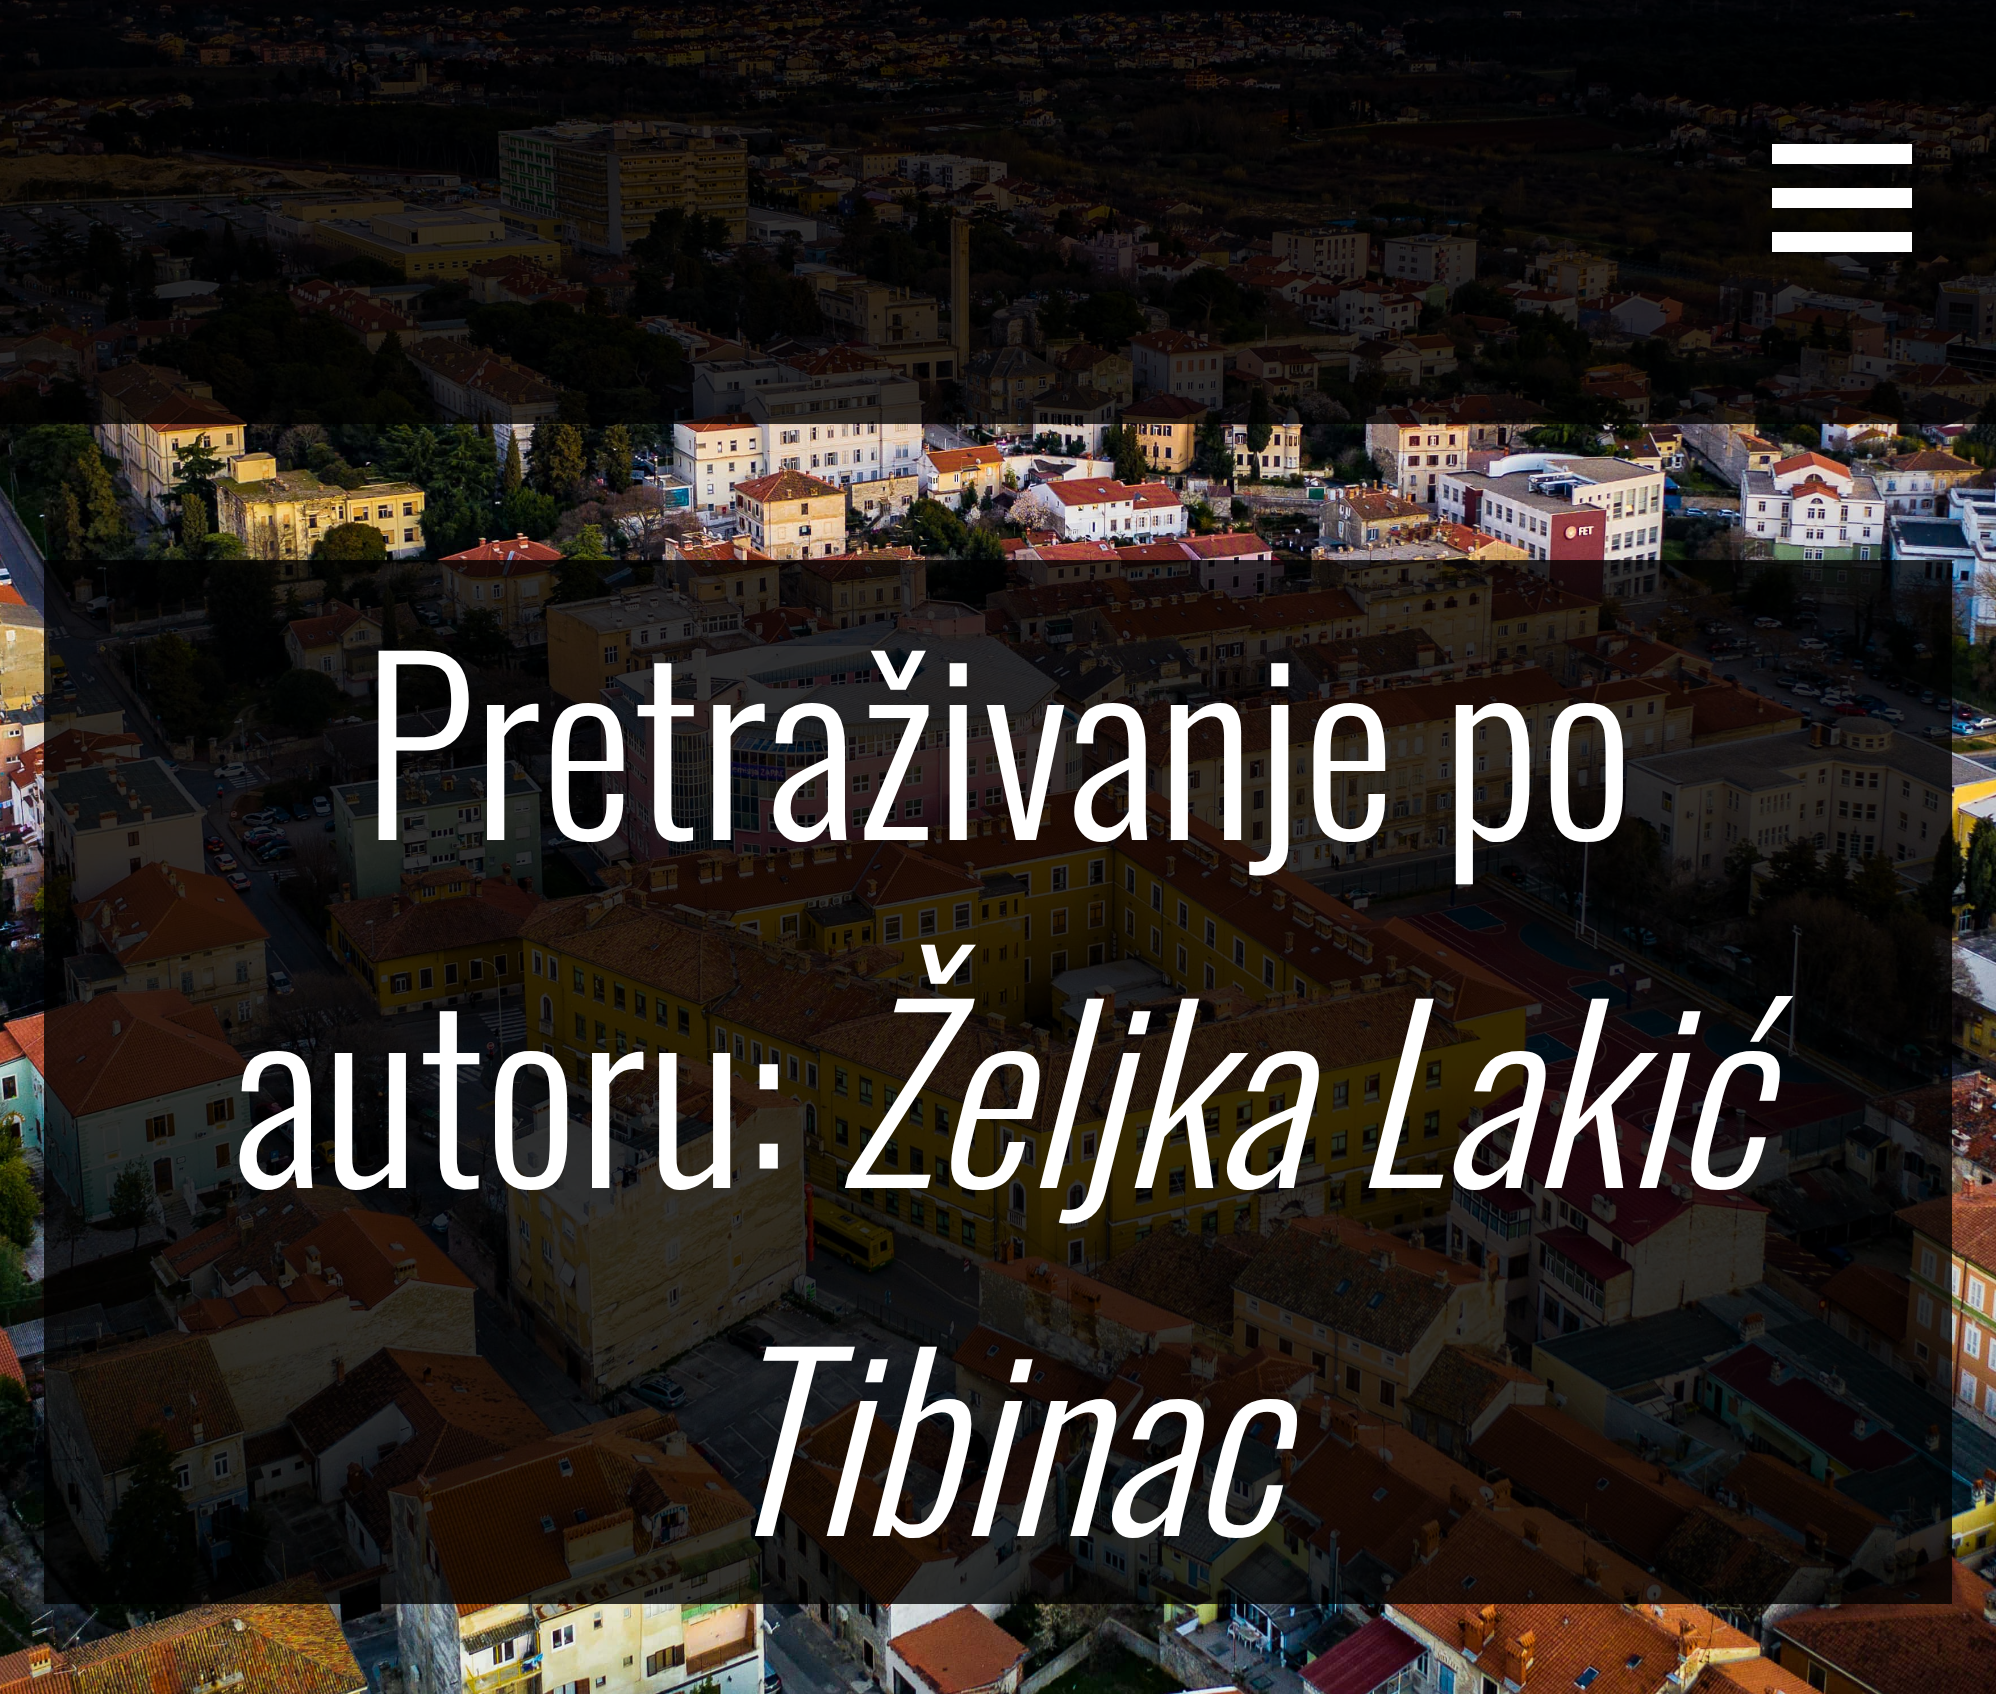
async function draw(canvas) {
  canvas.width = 1996;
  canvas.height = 1694;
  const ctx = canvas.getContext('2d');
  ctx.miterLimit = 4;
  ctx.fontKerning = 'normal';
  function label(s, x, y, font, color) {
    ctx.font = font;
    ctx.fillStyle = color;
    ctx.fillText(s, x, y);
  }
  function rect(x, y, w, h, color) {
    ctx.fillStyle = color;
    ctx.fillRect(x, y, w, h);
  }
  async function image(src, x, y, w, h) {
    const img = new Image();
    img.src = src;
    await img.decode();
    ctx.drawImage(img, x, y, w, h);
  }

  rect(0, 0, 1996, 1694, '#fff');
  await image('assets/img1.png', 0, 0, 1996, 1694);
  rect(0, 0, 1996, 424, '#000000cc');
  rect(1772, 144, 140, 20, '#fff');
  rect(1772, 188, 140, 20, '#fff');
  rect(1772, 232, 140, 20, '#fff');
  rect(44, 560, 1908, 1044, '#000000cc');
  label('Pretraživanje po', 362, 840, '300 233.5px Oswald', '#fff');
  label('autoru:', 233, 1188, '300 233.5px Oswald', '#fff');
  label('Željka Lakić', 837, 1188, 'italic 300 233.5px Oswald', '#fff');
  label('Tibinac', 715, 1536, 'italic 300 233.5px Oswald', '#fff');
}

draw(document.querySelector('canvas'));
